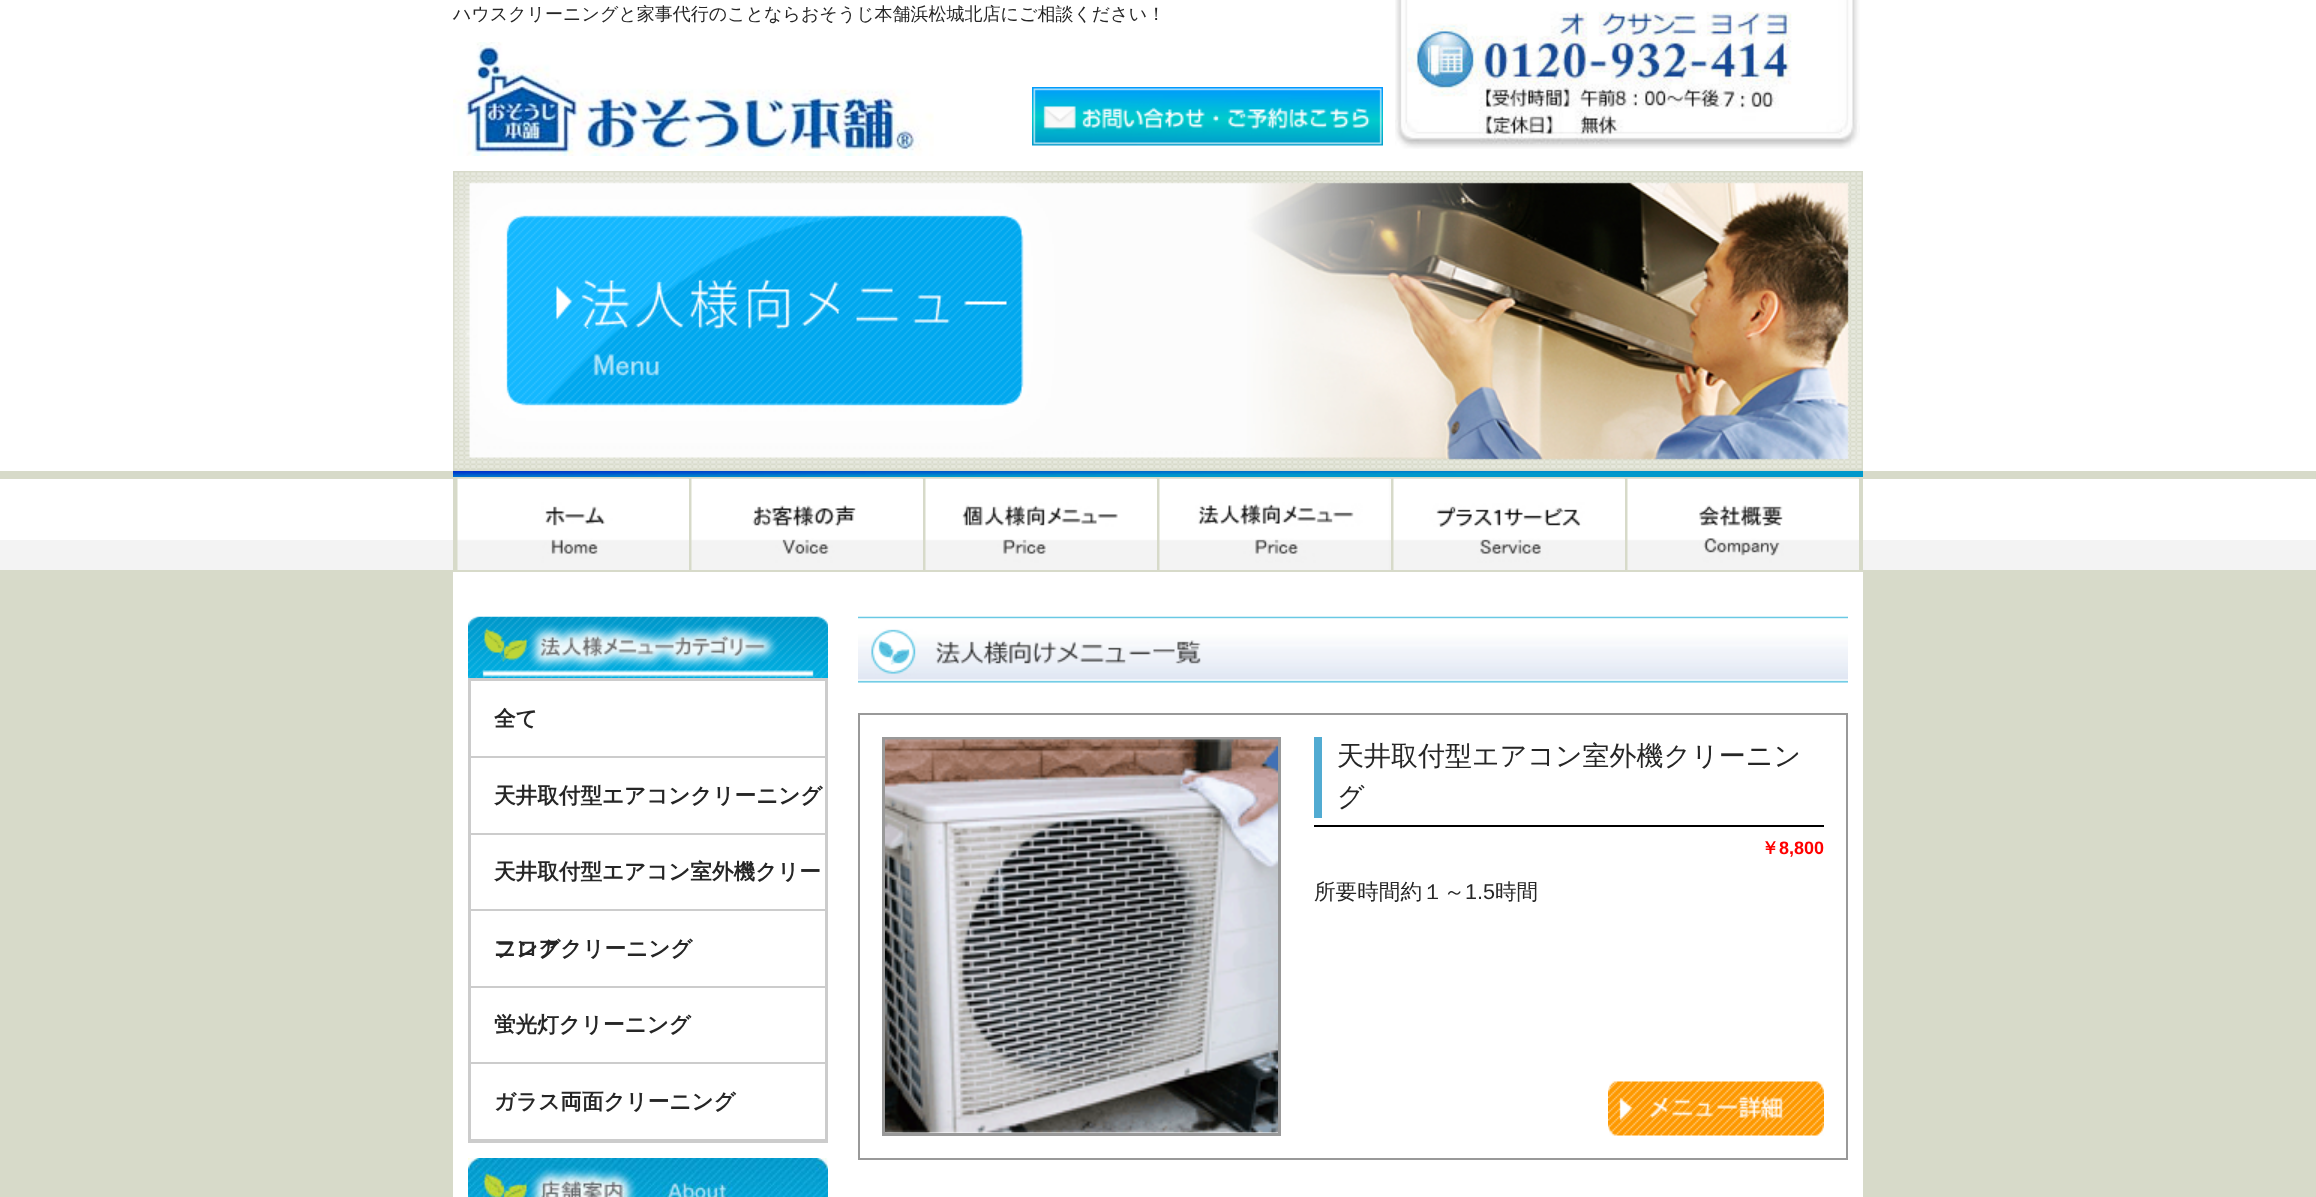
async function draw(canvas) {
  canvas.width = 2316;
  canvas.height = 1197;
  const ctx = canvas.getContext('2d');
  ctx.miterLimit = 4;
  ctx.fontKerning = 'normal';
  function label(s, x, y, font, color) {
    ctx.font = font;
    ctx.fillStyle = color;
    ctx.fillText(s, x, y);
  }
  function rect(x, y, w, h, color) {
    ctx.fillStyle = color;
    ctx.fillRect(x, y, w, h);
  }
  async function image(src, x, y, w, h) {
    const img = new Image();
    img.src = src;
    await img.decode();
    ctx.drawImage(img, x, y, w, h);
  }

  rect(0, 0, 2316, 1197, '#fff');
  label('ハウスクリーニングと家事代行のことならおそうじ本舗浜松城北店にご相談ください！', 453, 20, '500 18px WenQuanYi Zen Hei', '#262626');
  await image('assets/img1.png', 1395, 0, 465, 149);
  await image('assets/img2.png', 453, 42, 481, 114);
  await image('assets/img3.png', 1032, 87, 351, 59);
  await image('assets/img4.png', 453, 171, 1410, 300);
  rect(0, 471, 2316, 8, '#d7dac9');
  await image('assets/img5.png', 453, 471, 1410, 6);
  rect(0, 540, 2316, 30, '#f3f3f3');
  rect(0, 570, 2316, 627, '#d7dac9');
  rect(453, 479, 5, 91, '#d7dac9');
  await image('assets/img6.png', 457, 478, 232, 92);
  rect(689, 479, 3, 91, '#d7dac9');
  await image('assets/img7.png', 691, 478, 232, 92);
  rect(923, 479, 3, 91, '#d7dac9');
  await image('assets/img8.png', 925, 478, 232, 92);
  rect(1157, 479, 3, 91, '#d7dac9');
  await image('assets/img9.png', 1159, 478, 232, 92);
  rect(1391, 479, 3, 91, '#d7dac9');
  await image('assets/img10.png', 1393, 478, 232, 92);
  rect(1859, 479, 4, 91, '#d7dac9');
  rect(1625, 479, 3, 91, '#d7dac9');
  await image('assets/img11.png', 1627, 478, 232, 92);
  rect(453, 572, 1410, 625, '#fff');
  await image('assets/img12.png', 468, 616, 360, 62);
  ctx.strokeStyle = '#ccc';
  ctx.lineWidth = 3;
  ctx.strokeRect(469.5, 679.5, 357, 462);
  rect(471, 756, 354, 2, '#ccc');
  label('全て', 494, 726, 'bold 21.6px WenQuanYi Zen Hei', '#262626');
  rect(471, 833, 354, 2, '#ccc');
  label('天井取付型エアコンクリーニング', 494, 803, 'bold 21.6px WenQuanYi Zen Hei', '#262626');
  rect(471, 909, 354, 2, '#ccc');
  label('天井取付型エアコン室外機クリー', 494, 879, 'bold 21.6px WenQuanYi Zen Hei', '#262626');
  label('ニング', 494, 956, 'bold 21.6px WenQuanYi Zen Hei', '#262626');
  rect(471, 986, 354, 2, '#ccc');
  label('フロアクリーニング', 494, 956, 'bold 21.6px WenQuanYi Zen Hei', '#262626');
  rect(471, 1062, 354, 2, '#ccc');
  label('蛍光灯クリーニング', 494, 1032, 'bold 21.6px WenQuanYi Zen Hei', '#262626');
  rect(471, 1139, 354, 1, '#ccc');
  label('ガラス両面クリーニング', 494, 1109, 'bold 21.6px WenQuanYi Zen Hei', '#262626');
  await image('assets/img13.png', 468, 1158, 360, 39);
  await image('assets/img14.png', 858, 616, 990, 67);
  ctx.strokeStyle = '#999';
  ctx.lineWidth = 2;
  ctx.strokeRect(859, 714, 988, 445);
  ctx.lineWidth = 3;
  ctx.strokeRect(883.5, 738.5, 396, 396);
  await image('assets/img15.png', 885, 739, 393, 394);
  rect(1314, 737, 8, 81, '#51abd2');
  label('天井取付型エアコン室外機クリーニン', 1337, 765, '500 27px WenQuanYi Zen Hei', '#262626');
  label('グ', 1337, 806, '500 27px WenQuanYi Zen Hei', '#262626');
  rect(1314, 825, 510, 2, '#000');
  label('￥', 1761, 854, 'bold 18px WenQuanYi Zen Hei', '#f00');
  label('8,800', 1779, 854, 'bold 18px Liberation Sans', '#f00');
  label('所要時間約１～', 1314, 899, '500 21.6px WenQuanYi Zen Hei', '#262626');
  label('1.5', 1465, 899, '21.6px Liberation Sans', '#262626');
  label('時間', 1495, 899, '500 21.6px WenQuanYi Zen Hei', '#262626');
  await image('assets/img16.png', 1608, 1081, 216, 55);
}

draw(document.querySelector('canvas'));
